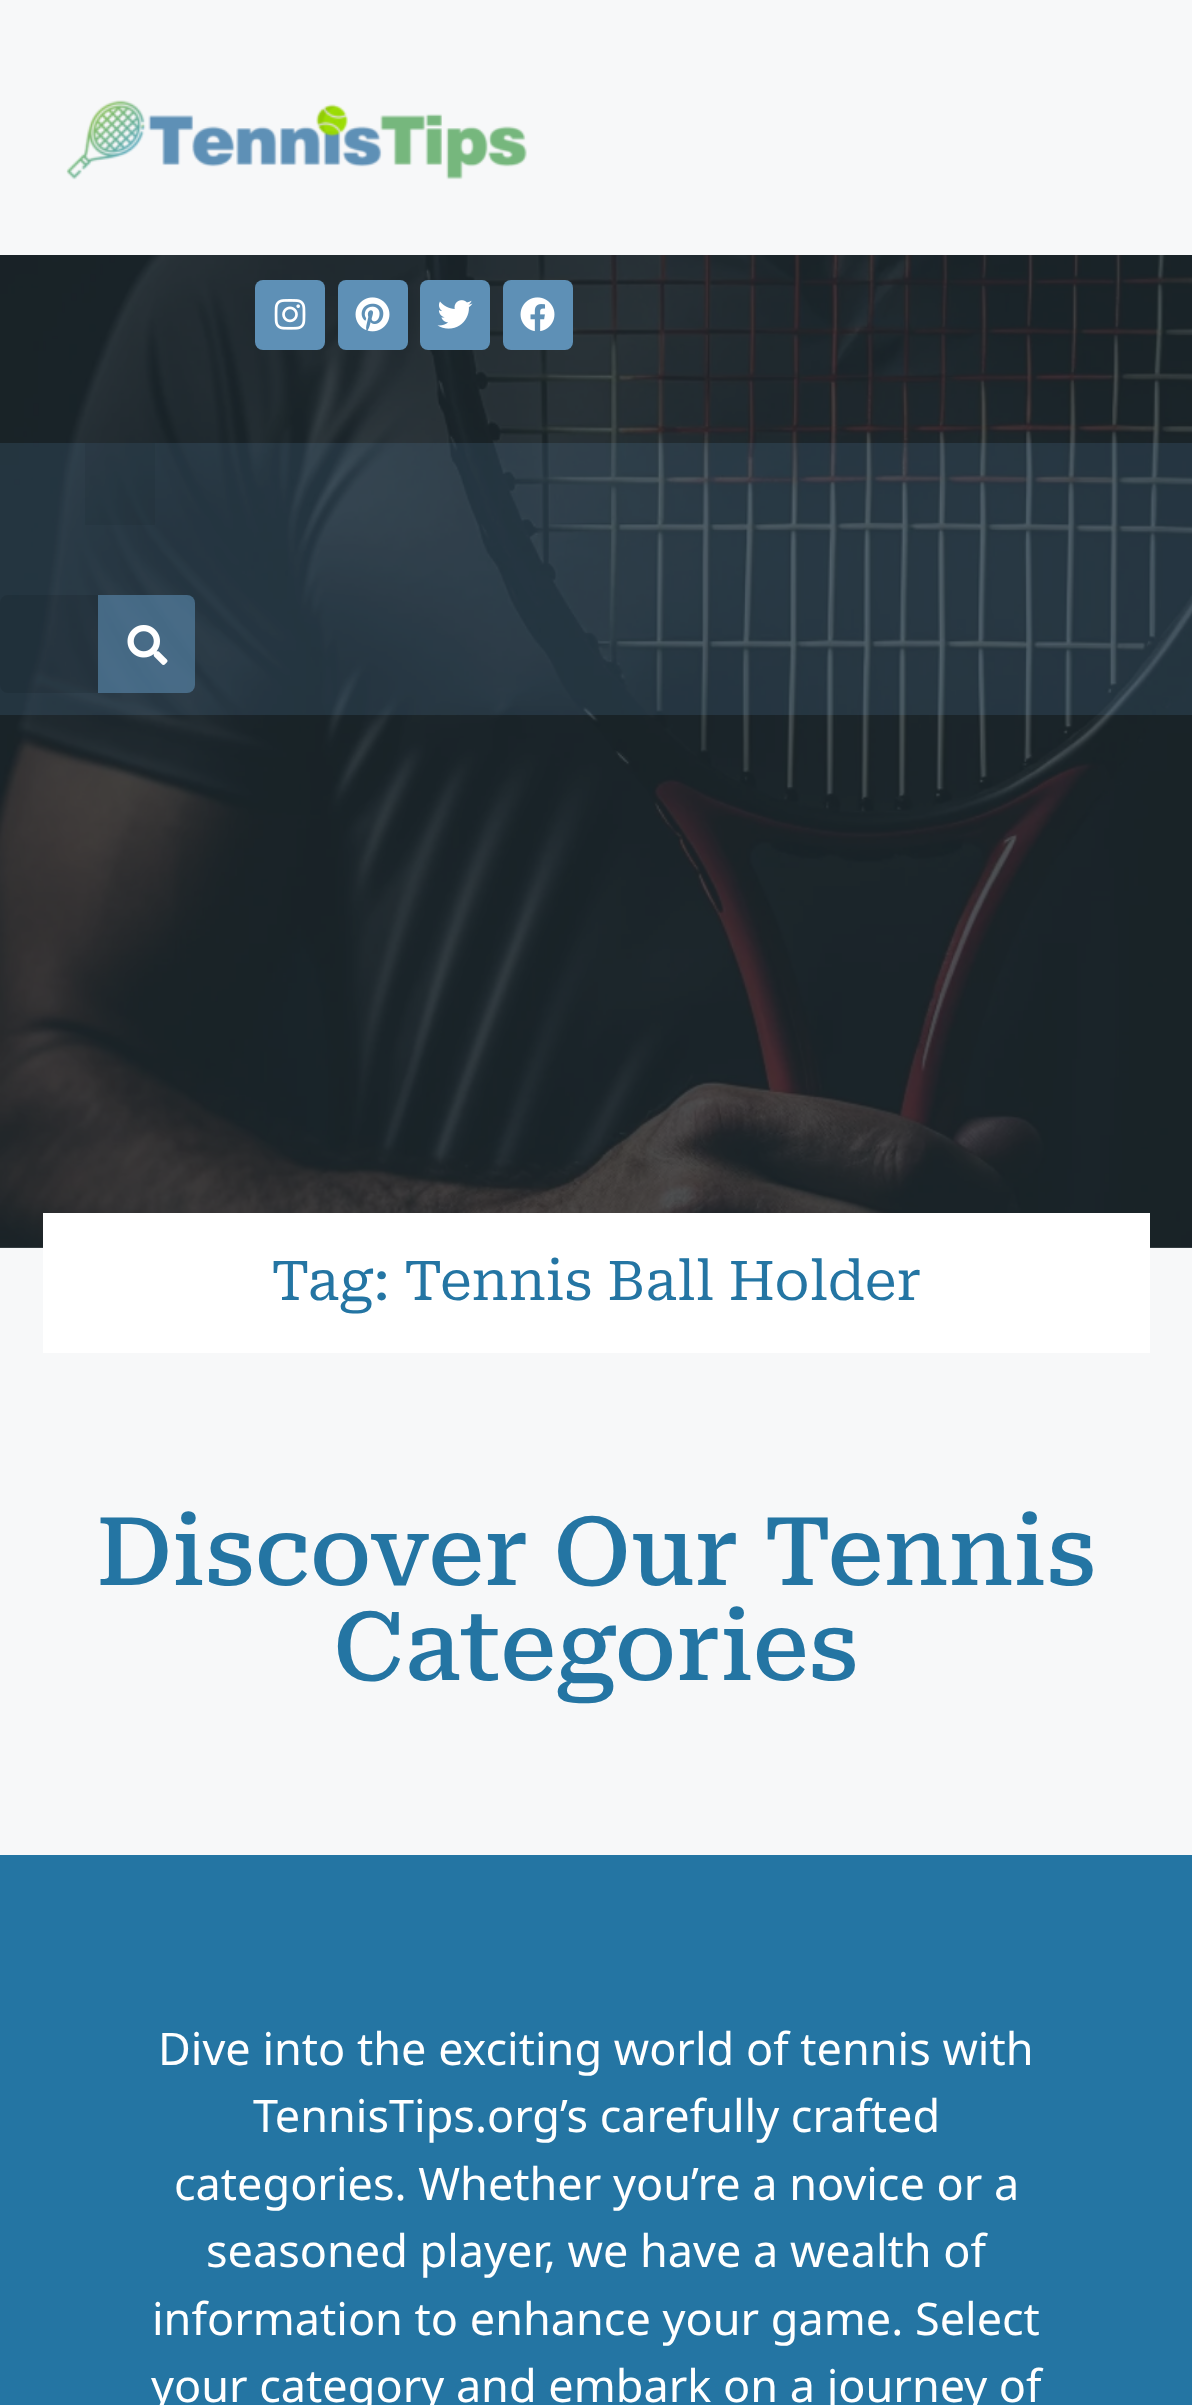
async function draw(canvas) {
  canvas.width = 1192;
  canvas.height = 2405;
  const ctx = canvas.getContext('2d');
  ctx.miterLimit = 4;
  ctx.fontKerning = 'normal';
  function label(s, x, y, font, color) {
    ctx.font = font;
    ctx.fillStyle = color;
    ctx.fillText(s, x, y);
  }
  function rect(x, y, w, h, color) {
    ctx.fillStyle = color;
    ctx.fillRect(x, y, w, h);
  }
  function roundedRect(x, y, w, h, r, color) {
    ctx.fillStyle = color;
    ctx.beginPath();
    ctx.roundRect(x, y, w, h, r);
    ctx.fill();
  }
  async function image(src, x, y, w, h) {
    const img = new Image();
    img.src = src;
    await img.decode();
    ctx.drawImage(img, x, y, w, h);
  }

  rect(0, 0, 1192, 2405, '#f7f8f9');
  rect(0, 1247, 1192, 1, '#4c565b');
  await image('assets/img1.png', 66, 100, 461, 80);
  await image('assets/img7.png', 0, 255, 1192, 993);
  roundedRect(255, 280, 70, 70, 8, '#5e90b6');
  await image('assets/img2.png', 274, 299, 32, 31);
  roundedRect(338, 280, 70, 70, 8, '#5e90b6');
  await image('assets/img3.png', 355, 297, 35, 35);
  roundedRect(420, 280, 70, 70, 8, '#5e90b6');
  await image('assets/img4.png', 437, 300, 36, 29);
  roundedRect(503, 280, 70, 70, 8, '#5e90b6');
  await image('assets/img5.png', 520, 297, 35, 35);
  rect(0, 443, 1192, 272, '#5e90b62b');
  rect(85, 443, 70, 82, '#0000000d');
  roundedRect(0, 595, 195, 98, 8, '#02010117');
  ctx.fillStyle = '#5e90b699';
  ctx.beginPath();
  ctx.roundRect(98, 595, 97, 98, [0, 8, 8, 0]);
  ctx.fill();
  await image('assets/img6.png', 127, 625, 41, 40);
  rect(43, 1213, 1107, 140, '#fff');
  label('Tag: Tennis Ball Holder', 271, 1300, '55px Roboto Serif', '#2475a3');
  label('Discover Our Tennis', 96, 1585, '500 95px Roboto Serif', '#2475a3');
  label('Categories', 333, 1680, '500 95px Roboto Serif', '#2475a3');
  rect(0, 1855, 1192, 550, '#2475a3');
  label('Dive into the exciting world of tennis with', 158, 2065, '45px Noto Sans', '#fff');
  label('TennisTips.org’s carefully crafted', 253, 2132, '45px Noto Sans', '#fff');
  label('categories. Whether you’re a novice or a', 174, 2200, '45px Noto Sans', '#fff');
  label('seasoned player, we have a wealth of', 206, 2267, '45px Noto Sans', '#fff');
  label('information to enhance your game. Select', 152, 2335, '45px Noto Sans', '#fff');
  label('your category and embark on a journey of', 151, 2402, '45px Noto Sans', '#fff');
}

draw(document.querySelector('canvas'));
